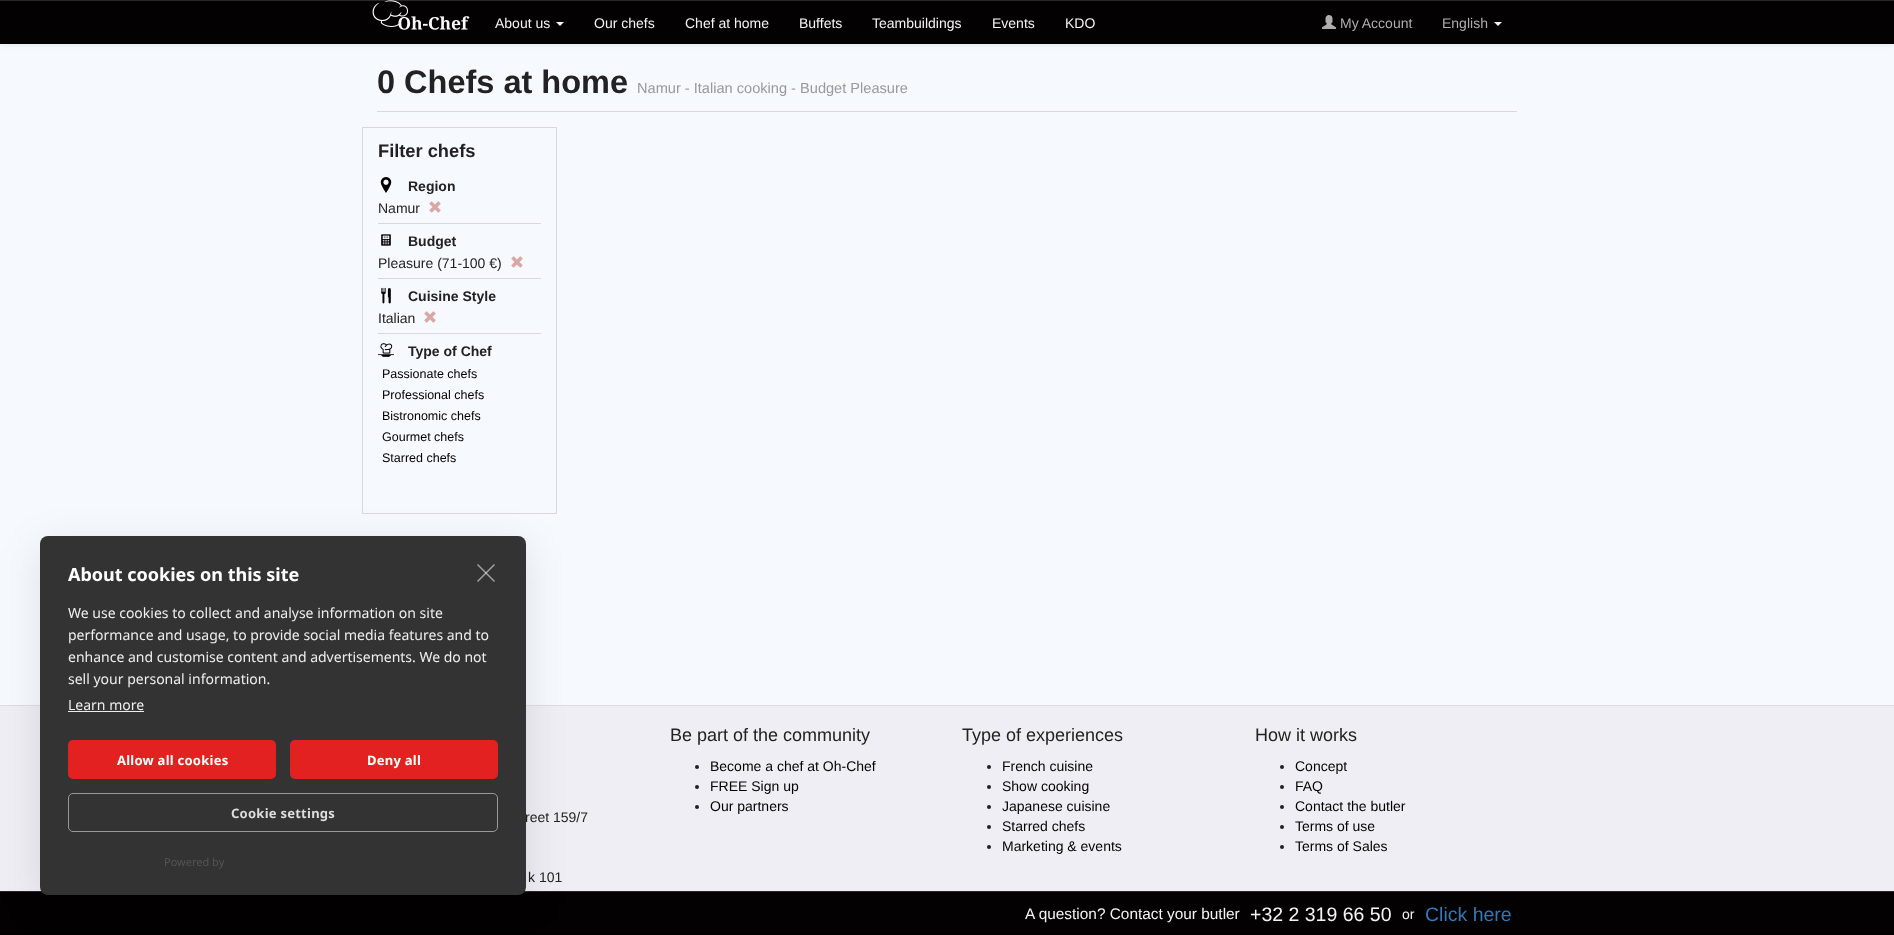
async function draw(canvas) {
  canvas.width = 1894;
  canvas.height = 935;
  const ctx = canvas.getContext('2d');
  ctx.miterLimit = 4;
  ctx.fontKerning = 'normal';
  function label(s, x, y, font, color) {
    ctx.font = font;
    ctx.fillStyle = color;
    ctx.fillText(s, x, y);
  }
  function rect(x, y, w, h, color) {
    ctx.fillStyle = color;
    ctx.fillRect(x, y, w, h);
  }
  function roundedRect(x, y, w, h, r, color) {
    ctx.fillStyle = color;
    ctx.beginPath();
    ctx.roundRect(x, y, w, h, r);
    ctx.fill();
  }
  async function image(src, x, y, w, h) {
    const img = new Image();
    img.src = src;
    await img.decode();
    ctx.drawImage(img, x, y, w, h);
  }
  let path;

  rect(0, 0, 1894, 935, '#f6f9fd');
  ctx.fillStyle = '#00000012';
  ctx.filter = 'blur(2.5px)';
  ctx.beginPath();
  ctx.rect(0, 1, 1894, 44);
  ctx.fill();
  ctx.filter = 'none';
  rect(0, 1, 1894, 42, '#030102');
  rect(0, 0, 1894, 1, '#292728');
  rect(0, 43, 1894, 1, '#000');
  await image('assets/img1.png', 372, 0, 98, 30);
  label('About us', 495, 28, '14px Liberation Sans', '#f4f4f4');
  path = new Path2D('M556 22H564L560 26Z');
  ctx.fill(path);
  label('Our chefs', 594, 28, '14px Liberation Sans', '#f4f4f4');
  label('Chef at home', 685, 28, '14px Liberation Sans', '#f4f4f4');
  label('Buffets', 799, 28, '14px Liberation Sans', '#f4f4f4');
  label('Teambuildings', 872, 28, '14px Liberation Sans', '#f4f4f4');
  label('Events', 992, 28, '14px Liberation Sans', '#f4f4f4');
  label('KDO', 1065, 28, '14px Liberation Sans', '#f4f4f4');
  await image('assets/img2.png', 1322, 15, 14, 14);
  label('My Account', 1340, 28, '14px Liberation Sans', '#aeaeae');
  label('English', 1442, 28, '14px Liberation Sans', '#aeaeae');
  ctx.fillStyle = '#f4f4f4';
  path = new Path2D('M1494 22H1502L1498 26Z');
  ctx.fill(path);
  label('0 Chefs at home', 377, 93, 'bold 32.5px Liberation Sans', '#222');
  label('Namur - Italian cooking - Budget Pleasure', 637, 93, '14.6px Liberation Sans', '#999');
  rect(377, 111, 1140, 1, '#d9d9d9');
  ctx.strokeStyle = '#d9d9d9';
  ctx.strokeRect(362.5, 127.5, 194, 386);
  label('Filter chefs', 378, 157, 'bold 18.25px Liberation Sans', '#222');
  await image('assets/img3.png', 380, 177, 12, 16);
  label('Region', 408, 191, 'bold 14px Liberation Sans', '#222');
  label('Namur', 378, 213, '14px Liberation Sans', '#222');
  await image('assets/img4.png', 429, 201, 12, 12);
  rect(378, 223, 163, 1, '#d9d9d9');
  await image('assets/img5.png', 381, 234, 10, 12);
  label('Budget', 408, 246, 'bold 14px Liberation Sans', '#222');
  label('Pleasure (71-100 €)', 378, 268, '14px Liberation Sans', '#222');
  await image('assets/img4.png', 511, 256, 12, 12);
  rect(378, 278, 163, 1, '#d9d9d9');
  await image('assets/img6.png', 381, 287, 10, 17);
  label('Cuisine Style', 408, 301, 'bold 14px Liberation Sans', '#222');
  label('Italian', 378, 323, '14px Liberation Sans', '#222');
  await image('assets/img4.png', 424, 311, 12, 12);
  rect(378, 333, 163, 1, '#d9d9d9');
  await image('assets/img7.png', 378, 343, 16, 14);
  label('Type of Chef', 408, 356, 'bold 14px Liberation Sans', '#222');
  label('Passionate chefs', 382, 378, '12.5px Liberation Sans', '#030102');
  label('Professional chefs', 382, 399, '12.5px Liberation Sans', '#030102');
  label('Bistronomic chefs', 382, 420, '12.5px Liberation Sans', '#030102');
  label('Gourmet chefs', 382, 441, '12.5px Liberation Sans', '#030102');
  label('Starred chefs', 382, 462, '12.5px Liberation Sans', '#030102');
  rect(0, 706, 1894, 185, '#eeeef4');
  rect(0, 705, 1894, 1, '#dedede');
  rect(0, 892, 1894, 42, '#030102');
  rect(0, 891, 1894, 1, '#292728');
  rect(0, 934, 1894, 1, '#000');
  ctx.fillStyle = '#0000001a';
  ctx.filter = 'blur(20px)';
  ctx.beginPath();
  ctx.roundRect(40, 546, 486, 359, 8);
  ctx.fill();
  ctx.filter = 'none';
  label('reet 159/7', 525, 822, '14px Liberation Sans', '#222');
  roundedRect(40, 536, 486, 359, 8, '#333');
  ctx.fillStyle = '#a3a3a3';
  path = new Path2D('M477 581L494 564L495 565L478 582Z');
  ctx.fill(path);
  ctx.fillStyle = '#eeeeee99';
  path = new Path2D('M478 564L495 581L494 582L477 565Z');
  ctx.fill(path);
  label('About cookies on this site', 68, 581, 'bold 18px Noto Sans', '#fff');
  label('We use cookies to collect and analyse information on site', 68, 618, '14px Noto Sans', '#eee');
  label('performance and usage, to provide social media features and to', 68, 640, '14px Noto Sans', '#eee');
  label('enhance and customise content and advertisements. We do not', 68, 662, '14px Noto Sans', '#eee');
  label('sell your personal information.', 68, 684, '14px Noto Sans', '#eee');
  label('Learn more', 68, 710, '14px Noto Sans', '#eee');
  rect(68, 711, 76, 1, '#eee');
  roundedRect(68, 740, 208, 39, 5, '#e42121');
  ctx.letterSpacing = '0.25px';
  label('Allow all cookies', 117, 765, 'bold 13px Noto Sans', '#fff');
  roundedRect(290, 740, 208, 39, 5, '#e42121');
  label('Deny all', 367, 765, 'bold 13px Noto Sans', '#fff');
  ctx.beginPath();
  ctx.roundRect(68.5, 793.5, 429, 38, 4.5);
  ctx.strokeStyle = '#999';
  ctx.stroke();
  label('Cookie settings', 231, 818, 'bold 13px Noto Sans', '#ddd');
  ctx.letterSpacing = '0px';
  label('Powered by', 164, 866, '11px Noto Sans', '#555');
  label('k 101', 528, 882, '14px Liberation Sans', '#222');
  label('Be part of the community', 670, 741, '18px Liberation Sans', '#222');
  ctx.beginPath();
  ctx.arc(697, 767, 2, 0, 2 * Math.PI);
  ctx.fill();
  label('Become a chef at Oh-Chef', 710, 771, '14px Liberation Sans', '#030102');
  ctx.fillStyle = '#222';
  ctx.beginPath();
  ctx.arc(697, 787, 2, 0, 2 * Math.PI);
  ctx.fill();
  label('FREE Sign up', 710, 791, '14px Liberation Sans', '#030102');
  ctx.fillStyle = '#222';
  ctx.beginPath();
  ctx.arc(697, 807, 2, 0, 2 * Math.PI);
  ctx.fill();
  label('Our partners', 710, 811, '14px Liberation Sans', '#030102');
  label('Type of experiences', 962, 741, '18px Liberation Sans', '#222');
  ctx.beginPath();
  ctx.arc(989, 767, 2, 0, 2 * Math.PI);
  ctx.fill();
  label('French cuisine', 1002, 771, '14px Liberation Sans', '#030102');
  ctx.fillStyle = '#222';
  ctx.beginPath();
  ctx.arc(989, 787, 2, 0, 2 * Math.PI);
  ctx.fill();
  label('Show cooking', 1002, 791, '14px Liberation Sans', '#030102');
  ctx.fillStyle = '#222';
  ctx.beginPath();
  ctx.arc(989, 807, 2, 0, 2 * Math.PI);
  ctx.fill();
  label('Japanese cuisine', 1002, 811, '14px Liberation Sans', '#030102');
  ctx.fillStyle = '#222';
  ctx.beginPath();
  ctx.arc(989, 827, 2, 0, 2 * Math.PI);
  ctx.fill();
  label('Starred chefs', 1002, 831, '14px Liberation Sans', '#030102');
  ctx.fillStyle = '#222';
  ctx.beginPath();
  ctx.arc(989, 847, 2, 0, 2 * Math.PI);
  ctx.fill();
  label('Marketing & events', 1002, 851, '14px Liberation Sans', '#030102');
  label('How it works', 1255, 741, '18px Liberation Sans', '#222');
  ctx.beginPath();
  ctx.arc(1282, 767, 2, 0, 2 * Math.PI);
  ctx.fill();
  label('Concept', 1295, 771, '14px Liberation Sans', '#030102');
  ctx.fillStyle = '#222';
  ctx.beginPath();
  ctx.arc(1282, 787, 2, 0, 2 * Math.PI);
  ctx.fill();
  label('FAQ', 1295, 791, '14px Liberation Sans', '#030102');
  ctx.fillStyle = '#222';
  ctx.beginPath();
  ctx.arc(1282, 807, 2, 0, 2 * Math.PI);
  ctx.fill();
  label('Contact the butler', 1295, 811, '14px Liberation Sans', '#030102');
  ctx.fillStyle = '#222';
  ctx.beginPath();
  ctx.arc(1282, 827, 2, 0, 2 * Math.PI);
  ctx.fill();
  label('Terms of use', 1295, 831, '14px Liberation Sans', '#030102');
  ctx.fillStyle = '#222';
  ctx.beginPath();
  ctx.arc(1282, 847, 2, 0, 2 * Math.PI);
  ctx.fill();
  label('Terms of Sales', 1295, 851, '14px Liberation Sans', '#030102');
  label('A question? Contact your butler', 1025, 919, '15.4px Liberation Sans', '#f4f4f4');
  label('+32 2 319 66 50', 1250, 921, '19.5px Liberation Sans', '#f4f4f4');
  label('or', 1402, 919, '14px Liberation Sans', '#f4f4f4');
  label('Click here', 1425, 921, '19.5px Liberation Sans', '#337ab7');
}

draw(document.querySelector('canvas'));
